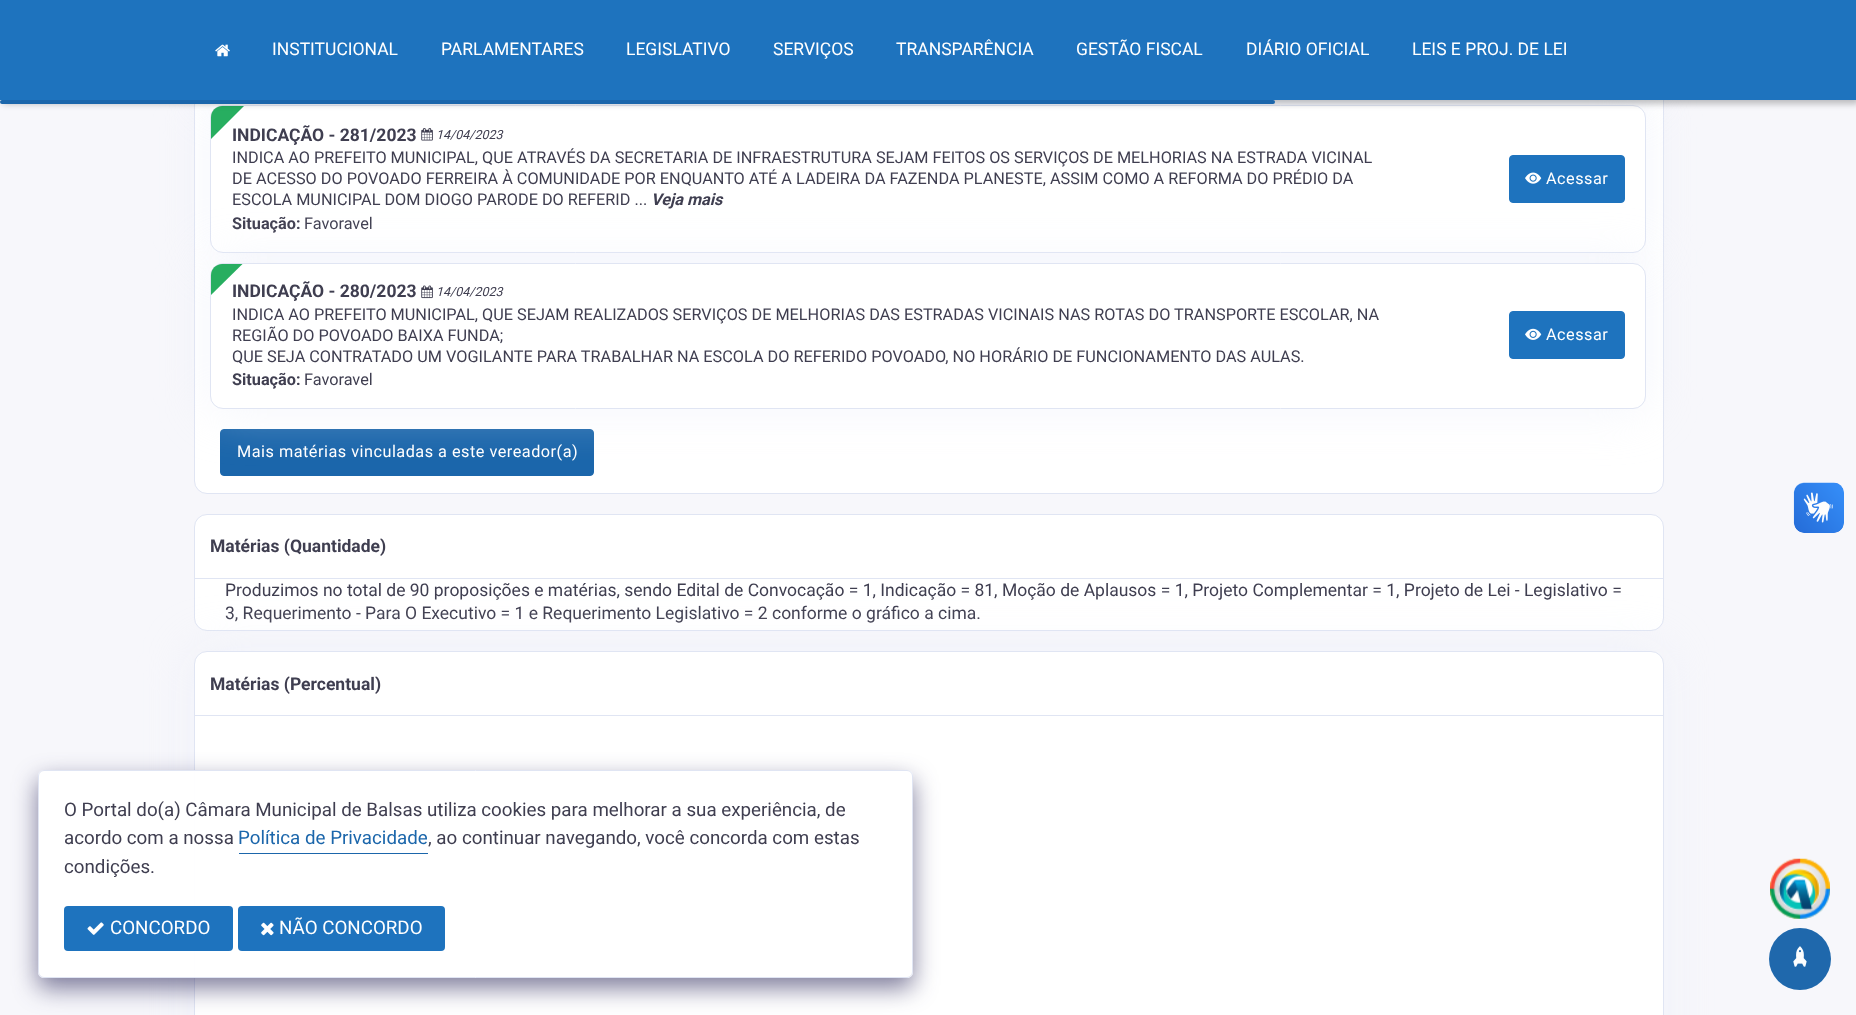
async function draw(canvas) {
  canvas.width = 1856;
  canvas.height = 1015;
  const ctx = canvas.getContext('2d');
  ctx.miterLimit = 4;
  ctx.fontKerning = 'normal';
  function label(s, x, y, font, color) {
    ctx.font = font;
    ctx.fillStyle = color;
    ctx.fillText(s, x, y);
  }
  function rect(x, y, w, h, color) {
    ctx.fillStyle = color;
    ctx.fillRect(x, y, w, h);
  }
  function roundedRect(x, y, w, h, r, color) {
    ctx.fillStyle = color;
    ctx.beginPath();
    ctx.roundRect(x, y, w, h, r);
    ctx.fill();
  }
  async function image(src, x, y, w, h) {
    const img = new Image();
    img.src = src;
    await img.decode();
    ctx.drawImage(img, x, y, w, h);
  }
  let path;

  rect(0, 0, 1856, 1015, '#f7f7fb');
  ctx.fillStyle = '#fff';
  ctx.beginPath();
  ctx.roundRect(194.5, -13.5, 1469, 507, 12.5);
  ctx.fill();
  ctx.strokeStyle = '#e0e5f3';
  ctx.stroke();
  ctx.fillStyle = '#eaeef980';
  ctx.filter = 'blur(25px)';
  ctx.beginPath();
  ctx.roundRect(210, -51, 1436, 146, 13);
  ctx.fill();
  ctx.filter = 'none';
  ctx.filter = 'blur(25px)';
  ctx.beginPath();
  ctx.roundRect(210, 105, 1436, 148, 13);
  ctx.fill();
  ctx.filter = 'none';
  ctx.fillStyle = '#fff';
  ctx.beginPath();
  ctx.roundRect(210.5, 105.5, 1435, 147, 12.5);
  ctx.fill();
  ctx.stroke();
  label('INDICAÇÃO - 281/2023', 232, 141, 'bold 17.5px Roboto', '#3f3e50');
  ctx.fillStyle = '#27ae60';
  path = new Path2D('M222 106H244L211 139V117C211 111 216 106 222 106Z');
  ctx.fill(path);
  ctx.fillStyle = '#0000003d';
  ctx.filter = 'blur(3px)';
  ctx.beginPath();
  ctx.rect(3, 4, 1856, 100);
  ctx.fill();
  ctx.filter = 'none';
  rect(0, 0, 1856, 100, '#1e73be');
  await image('assets/img1.png', 215, 44, 15, 13);
  label('INSTITUCIONAL', 272, 55, '17.5px Roboto', '#fff');
  label('PARLAMENTARES', 441, 55, '17.5px Roboto', '#fff');
  label('LEGISLATIVO', 626, 55, '17.5px Roboto', '#fff');
  label('SERVIÇOS', 773, 55, '17.5px Roboto', '#fff');
  label('TRANSPARÊNCIA', 896, 55, '17.5px Roboto', '#fff');
  label('GESTÃO FISCAL', 1076, 55, '17.5px Roboto', '#fff');
  label('DIÁRIO OFICIAL', 1246, 55, '17.5px Roboto', '#fff');
  label('LEIS E PROJ. DE LEI', 1412, 55, '17.5px Roboto', '#fff');
  roundedRect(0, 100, 1275, 4, 2, '#1b66ab');
  await image('assets/img2.png', 421, 128, 12, 13);
  label('14/04/2023', 436, 139, 'italic 12.5px Roboto', '#3f3e50');
  label('INDICA AO PREFEITO MUNICIPAL, QUE ATRAVÉS DA SECRETARIA DE INFRAESTRUTURA SEJAM FEITOS OS SERVIÇOS DE MELHORIAS NA ESTRADA VICINAL', 232, 163, '16.25px Roboto', '#3f3e50');
  label('DE ACESSO DO POVOADO FERREIRA À COMUNIDADE POR ENQUANTO ATÉ A LADEIRA DA FAZENDA PLANESTE, ASSIM COMO A REFORMA DO PRÉDIO DA', 232, 184, '16.25px Roboto', '#3f3e50');
  label('ESCOLA MUNICIPAL DOM DIOGO PARODE DO REFERID ...', 232, 205, '16.25px Roboto', '#3f3e50');
  label('Veja mais', 651, 205, 'italic bold 16.25px Roboto', '#3f3e50');
  label('Situação:', 232, 229, 'bold 16.25px Roboto', '#3f3e50');
  label('Favoravel', 304, 229, '16.25px Roboto', '#3f3e50');
  ctx.fillStyle = '#1e73be';
  ctx.beginPath();
  ctx.roundRect(1509.5, 155.5, 115, 47, 3.5);
  ctx.fill();
  ctx.strokeStyle = '#1e73be';
  ctx.stroke();
  await image('assets/img3.png', 1525, 172, 17, 12);
  ctx.letterSpacing = '0.5px';
  label('Acessar', 1546, 184, '16.25px Roboto', '#fff');
  ctx.fillStyle = '#1b66ab';
  ctx.beginPath();
  ctx.roundRect(220.5, 429.5, 373, 46, 3.5);
  ctx.fill();
  ctx.strokeStyle = '#1b66ab';
  ctx.stroke();
  ctx.fillStyle = '#eaeef980';
  ctx.filter = 'blur(25px)';
  ctx.beginPath();
  ctx.roundRect(210, 263, 1436, 146, 13);
  ctx.fill();
  ctx.filter = 'none';
  ctx.fillStyle = '#fff';
  ctx.beginPath();
  ctx.roundRect(210.5, 263.5, 1435, 145, 12.5);
  ctx.fill();
  ctx.strokeStyle = '#e0e5f3';
  ctx.stroke();
  ctx.letterSpacing = '0px';
  label('INDICAÇÃO - 280/2023', 232, 297, 'bold 17.5px Roboto', '#3f3e50');
  ctx.fillStyle = '#27ae60';
  path = new Path2D('M222 264H242.5L211 295V275C211 269 216 264 222 264Z');
  ctx.fill(path);
  await image('assets/img4.png', 421, 285, 12, 14);
  label('14/04/2023', 436, 296, 'italic 12.5px Roboto', '#3f3e50');
  label('INDICA AO PREFEITO MUNICIPAL, QUE SEJAM REALIZADOS SERVIÇOS DE MELHORIAS DAS ESTRADAS VICINAIS NAS ROTAS DO TRANSPORTE ESCOLAR, NA', 232, 320, '16.25px Roboto', '#3f3e50');
  label('REGIÃO DO POVOADO BAIXA FUNDA;', 232, 341, '16.25px Roboto', '#3f3e50');
  label('QUE SEJA CONTRATADO UM VOGILANTE PARA TRABALHAR NA ESCOLA DO REFERIDO POVOADO, NO HORÁRIO DE FUNCIONAMENTO DAS AULAS.', 232, 362, '16.25px Roboto', '#3f3e50');
  label('Situação:', 232, 385, 'bold 16.25px Roboto', '#3f3e50');
  label('Favoravel', 304, 385, '16.25px Roboto', '#3f3e50');
  ctx.fillStyle = '#1e73be';
  ctx.beginPath();
  ctx.roundRect(1509.5, 311.5, 115, 47, 3.5);
  ctx.fill();
  ctx.strokeStyle = '#1e73be';
  ctx.stroke();
  await image('assets/img5.png', 1525, 328, 17, 12);
  ctx.letterSpacing = '0.5px';
  label('Acessar', 1546, 340, '16.25px Roboto', '#fff');
  label('Mais matérias vinculadas a este vereador(a)', 237, 457, '16.25px Roboto', '#fff');
  ctx.beginPath();
  ctx.roundRect(194.5, 514.5, 1469, 116, 12.5);
  ctx.fill();
  ctx.strokeStyle = '#e0e5f3';
  ctx.stroke();
  rect(195, 578, 1468, 1, '#e0e5f3');
  ctx.letterSpacing = '0px';
  label('Matérias (Quantidade)', 210, 552, 'bold 17.5px Roboto', '#3f3e50');
  label('Produzimos no total de 90 proposições e matérias, sendo Edital de Convocação = 1, Indicação = 81, Moção de Aplausos = 1, Projeto Complementar = 1, Projeto de Lei - Legislativo =', 225, 596, '17.5px Roboto', '#3f3e50');
  label('3, Requerimento - Para O Executivo = 1 e Requerimento Legislativo = 2 conforme o gráfico a cima.', 225, 619, '17.5px Roboto', '#3f3e50');
  ctx.fillStyle = '#eaeef980';
  ctx.filter = 'blur(25px)';
  ctx.beginPath();
  ctx.roundRect(194, 651, 1470, 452, 13);
  ctx.fill();
  ctx.filter = 'none';
  ctx.fillStyle = '#fff';
  ctx.beginPath();
  ctx.roundRect(194.5, 651.5, 1469, 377, 12.5);
  ctx.fill();
  ctx.stroke();
  rect(195, 715, 1468, 1, '#e0e5f3');
  label('Matérias (Percentual)', 210, 690, 'bold 17.5px Roboto', '#3f3e50');
  await image('assets/img6.png', 1793, 482, 51, 51);
  await image('assets/img7.png', 1794, 483, 50, 50);
  ctx.save();
  path = new Path2D('M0 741H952V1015H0ZM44 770H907C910.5 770 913 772.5 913 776V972C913 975.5 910.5 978 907 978H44C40.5 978 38 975.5 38 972V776C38 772.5 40.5 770 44 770Z');
  ctx.clip(path, 'evenodd');
  ctx.fillStyle = '#28255999';
  ctx.filter = 'blur(12.5px)';
  ctx.beginPath();
  ctx.roundRect(38, 780, 875, 208, 6);
  ctx.fill();
  ctx.filter = 'none';
  ctx.restore();
  ctx.fillStyle = '#fffffff2';
  ctx.beginPath();
  ctx.roundRect(38.5, 770.5, 874, 207, 5.5);
  ctx.fill();
  ctx.stroke();
  label('O Portal do(a) Câmara Municipal de Balsas utiliza cookies para melhorar a sua experiência, de', 64, 816, '18.75px Roboto', '#3f3e50');
  label('acordo com a nossa', 64, 844, '18.75px Roboto', '#3f3e50');
  label('Política de Privacidade', 238, 844, '18.75px Roboto', '#1b66ab');
  rect(239, 853, 189, 1, '#1b66ab');
  label(', ao continuar navegando, você concorda com estas', 428, 844, '18.75px Roboto', '#3f3e50');
  label('condições.', 64, 873, '18.75px Roboto', '#3f3e50');
  roundedRect(64, 906, 169, 45, 4, '#1e73be');
  await image('assets/img8.png', 87, 922, 17, 13);
  label('CONCORDO', 110, 934, '18.75px Roboto', '#fff');
  roundedRect(238, 906, 207, 45, 4, '#1e73be');
  await image('assets/img9.png', 261, 922, 13, 14);
  label('NÃO CONCORDO', 279, 934, '18.75px Roboto', '#fff');
  await image('assets/img10.png', 1770, 858, 60, 61);
  ctx.fillStyle = '#1f68ac';
  ctx.beginPath();
  ctx.arc(1800, 959, 31, 0, 2 * Math.PI);
  ctx.fill();
  await image('assets/img11.png', 1793, 946, 14, 21);
}

draw(document.querySelector('canvas'));
